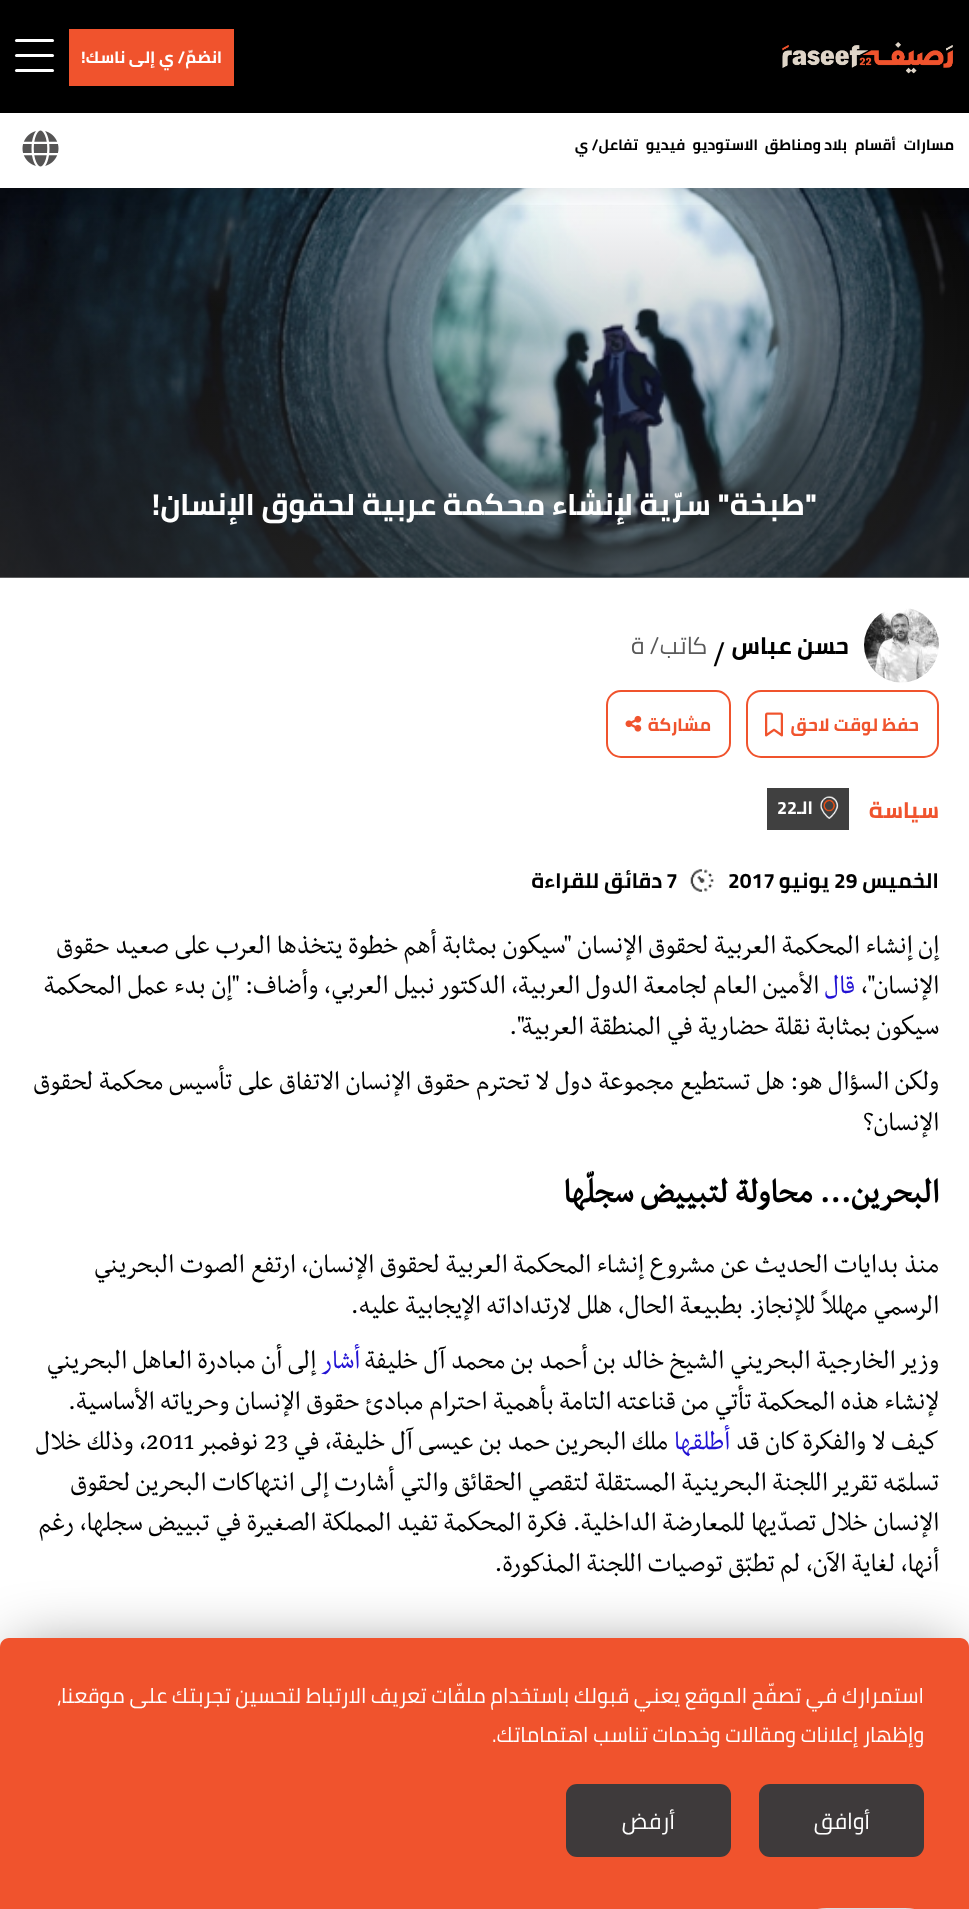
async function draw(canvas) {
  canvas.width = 969;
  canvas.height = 1909;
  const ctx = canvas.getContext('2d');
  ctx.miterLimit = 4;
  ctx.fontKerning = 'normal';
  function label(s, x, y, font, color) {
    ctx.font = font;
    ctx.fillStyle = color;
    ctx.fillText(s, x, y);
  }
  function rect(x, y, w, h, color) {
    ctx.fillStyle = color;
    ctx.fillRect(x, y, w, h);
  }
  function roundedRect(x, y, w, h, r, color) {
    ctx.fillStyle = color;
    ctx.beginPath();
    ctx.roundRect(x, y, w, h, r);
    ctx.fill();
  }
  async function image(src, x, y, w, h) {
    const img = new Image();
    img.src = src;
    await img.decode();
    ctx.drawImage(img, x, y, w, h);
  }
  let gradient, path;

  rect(0, 0, 969, 1909, '#fff');
  await image('assets/img3.png', 0, 188, 969, 390);
  gradient = ctx.createLinearGradient(0, 188, 0, 578);
  gradient.addColorStop(0, '#31313100');
  gradient.addColorStop(1, '#31313180');
  ctx.fillStyle = gradient;
  ctx.fillRect(0, 205, 969, 373);
  ctx.fillStyle = '#00000014';
  ctx.filter = 'blur(15px)';
  ctx.beginPath();
  ctx.rect(0, 5, 969, 187);
  ctx.fill();
  ctx.filter = 'none';
  rect(0, 0, 969, 113, '#000');
  await image('assets/img1.png', 782, 42, 171, 32);
  rect(69, 29, 165, 57, '#f0532d');
  ctx.direction = 'rtl';
  label('انضمّ/ ي إلى ناسك!', 222, 63, 'bold 16.5px Cairo', '#fff');
  roundedRect(15, 54, 39, 3, 1.5, '#fff');
  roundedRect(15, 39, 39, 3, 1.5, '#fff');
  roundedRect(15, 69, 39, 3, 1.5, '#fff');
  rect(0, 113, 969, 75, '#fff');
  label('مسارات', 954, 150, 'bold 15px Cairo', '#000');
  label('أقسام', 896, 150, 'bold 15px Cairo', '#000');
  label('بلاد ومناطق', 847, 150, 'bold 15px Cairo', '#000');
  label('الاستوديو', 758, 150, 'bold 15px Cairo', '#000');
  label('فيديو', 685, 150, 'bold 15px Cairo', '#000');
  label('تفاعل/ ي', 638, 150, 'bold 15px Cairo', '#000');
  await image('assets/img2.png', 22, 130, 37, 37);
  label('"طبخة" سرّية لإنشاء محكمة عربية لحقوق الإنسان!', 817, 515, 'bold 30px Cairo', '#fff');
  await image('assets/img4.png', 864, 608, 75, 75);
  label('حسن عباس', 849, 654, 'bold 24px Cairo', '#000');
  ctx.direction = 'ltr';
  label('/', 714, 666, 'bold 36px Liberation Serif', '#000');
  ctx.direction = 'rtl';
  label('كاتب/ ة', 707, 654, '24px Cairo', '#595959');
  ctx.beginPath();
  ctx.roundRect(747, 691, 191, 66, 14);
  ctx.strokeStyle = '#f0532d';
  ctx.lineWidth = 2;
  ctx.stroke();
  label('حفظ لوقت لاحق', 919, 731, 'bold 18px Cairo', '#f0532d');
  await image('assets/img5.png', 765, 712, 18, 25);
  ctx.beginPath();
  ctx.roundRect(607, 691, 123, 66, 14);
  ctx.stroke();
  label('مشاركة', 711, 731, 'bold 18px Cairo', '#f0532d');
  await image('assets/img6.png', 625, 715, 17, 17);
  label('سياسة', 939, 818, 'bold 22.5px Cairo', '#f0532d');
  rect(767, 788, 82, 42, '#404040');
  await image('assets/img7.png', 820, 796, 19, 23);
  label('الـ', 813, 814, 'bold 18px Cairo', '#fff');
  ctx.direction = 'ltr';
  label('22', 777, 814, 'bold 18px Cairo', '#fff');
  ctx.direction = 'rtl';
  label('الخميس', 939, 888, 'bold 21px Cairo', '#000');
  ctx.direction = 'ltr';
  label('29', 834, 888, 'bold 21px Cairo', '#000');
  ctx.direction = 'rtl';
  label('يونيو', 829, 888, 'bold 21px Cairo', '#000');
  ctx.direction = 'ltr';
  label('2017', 728, 888, 'bold 21px Cairo', '#000');
  await image('assets/img8.png', 690, 869, 24, 23);
  label('7', 666, 888, 'bold 21px Cairo', '#000');
  ctx.direction = 'rtl';
  label('دقائق للقراءة', 662, 888, 'bold 21px Cairo', '#000');
  label('إن إنشاء المحكمة العربية لحقوق الإنسان "سيكون بمثابة أهم خطوة يتخذها العرب على صعيد حقوق', 939, 953, '30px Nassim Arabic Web', '#000');
  label('الإنسان"،', 939, 993, '30px Nassim Arabic Web', '#000');
  label('قال', 855, 993, '30px Nassim Arabic Web', '#2212d3');
  label('الأمين العام لجامعة الدول العربية، الدكتور نبيل العربي، وأضاف: "إن بدء عمل المحكمة', 819, 993, '30px Nassim Arabic Web', '#000');
  label('سيكون بمثابة نقلة حضارية في المنطقة العربية".', 939, 1034, '30px Nassim Arabic Web', '#000');
  label('ولكن السؤال هو: هل تستطيع مجموعة دول لا تحترم حقوق الإنسان الاتفاق على تأسيس محكمة لحقوق', 939, 1089, '30px Nassim Arabic Web', '#000');
  label('الإنسان؟', 939, 1130, '30px Nassim Arabic Web', '#000');
  label('البحرين... محاولة لتبييض سجلّها', 939, 1202, 'bold 37.5px Nassim Arabic Web', '#000');
  label('منذ بدايات الحديث عن مشروع إنشاء المحكمة العربية لحقوق الإنسان، ارتفع الصوت البحريني', 939, 1272, '30px Nassim Arabic Web', '#000');
  label('الرسمي مهللاً للإنجاز. بطبيعة الحال، هلل لارتداداته الإيجابية عليه.', 939, 1313, '30px Nassim Arabic Web', '#000');
  label('وزير الخارجية البحريني الشيخ خالد بن أحمد بن محمد آل خليفة', 939, 1368, '30px Nassim Arabic Web', '#000');
  label('أشار', 360, 1368, '30px Nassim Arabic Web', '#2212d3');
  label('إلى أن مبادرة العاهل البحريني', 316, 1368, '30px Nassim Arabic Web', '#000');
  label('لإنشاء هذه المحكمة تأتي من قناعته التامة بأهمية احترام مبادئ حقوق الإنسان وحرياته الأساسية.', 939, 1409, '30px Nassim Arabic Web', '#000');
  label('كيف لا والفكرة كان قد', 939, 1449, '30px Nassim Arabic Web', '#000');
  label('أطلقها', 730, 1449, '30px Nassim Arabic Web', '#2212d3');
  label('ملك البحرين حمد بن عيسى آل خليفة، في', 668, 1449, '30px Nassim Arabic Web', '#000');
  ctx.direction = 'ltr';
  label('23', 264, 1449, '30px Nassim Arabic Web', '#000');
  ctx.direction = 'rtl';
  label('نوفمبر', 258, 1449, '30px Nassim Arabic Web', '#000');
  ctx.direction = 'ltr';
  label('2011', 146, 1449, '30px Nassim Arabic Web', '#000');
  ctx.direction = 'rtl';
  label('، وذلك خلال', 146, 1449, '30px Nassim Arabic Web', '#000');
  label('تسلمّه تقرير اللجنة البحرينية المستقلة لتقصي الحقائق والتي أشارت إلى انتهاكات البحرين لحقوق', 939, 1490, '30px Nassim Arabic Web', '#000');
  label('الإنسان خلال تصدّيها للمعارضة الداخلية. فكرة المحكمة تفيد المملكة الصغيرة في تبييض سجلها، رغم', 939, 1530, '30px Nassim Arabic Web', '#000');
  label('أنها، لغاية الآن، لم تطبّق توصيات اللجنة المذكورة.', 939, 1571, '30px Nassim Arabic Web', '#000');
  ctx.fillStyle = '#00000080';
  ctx.filter = 'blur(32px)';
  ctx.beginPath();
  ctx.rect(15, 1653, 939, 242);
  ctx.fill();
  ctx.filter = 'none';
  ctx.fillStyle = '#f0532d';
  path = new Path2D('M9 1638H960C965 1638 969 1642 969 1647V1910H0V1647C0 1642 4 1638 9 1638Z');
  ctx.fill(path);
  label('استمرارك في تصفّح الموقع يعني قبولك باستخدام ملفّات تعريف الارتباط لتحسين تجربتك على موقعنا،', 924, 1703, '21px Cairo', '#fff');
  label('وإظهار إعلانات ومقالات وخدمات تناسب اهتماماتك.', 924, 1742, '21px Cairo', '#fff');
  roundedRect(759, 1784, 165, 73, 11, '#3e3a3b');
  label('أوافق', 870, 1829, '22.5px Cairo', '#fff');
  roundedRect(566, 1784, 165, 73, 11, '#3e3a3b');
  label('أرفض', 675, 1829, '22.5px Cairo', '#fff');
  ctx.beginPath();
  ctx.roundRect(786, 1909, 160, 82, 80);
  ctx.strokeStyle = '#dbdade';
  ctx.stroke();
}

draw(document.querySelector('canvas'));
